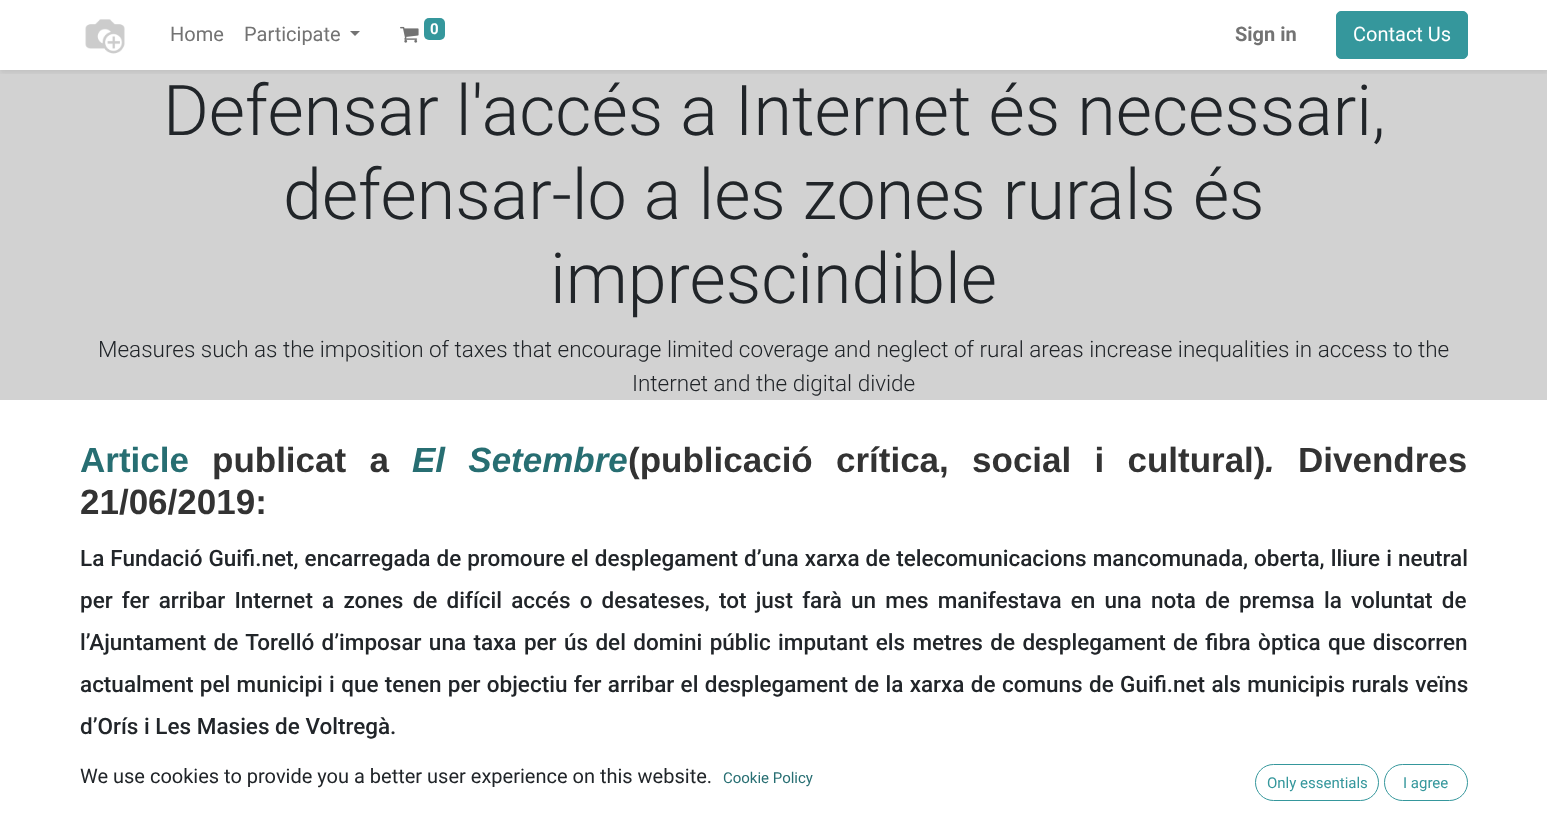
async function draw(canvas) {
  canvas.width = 1547;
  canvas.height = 821;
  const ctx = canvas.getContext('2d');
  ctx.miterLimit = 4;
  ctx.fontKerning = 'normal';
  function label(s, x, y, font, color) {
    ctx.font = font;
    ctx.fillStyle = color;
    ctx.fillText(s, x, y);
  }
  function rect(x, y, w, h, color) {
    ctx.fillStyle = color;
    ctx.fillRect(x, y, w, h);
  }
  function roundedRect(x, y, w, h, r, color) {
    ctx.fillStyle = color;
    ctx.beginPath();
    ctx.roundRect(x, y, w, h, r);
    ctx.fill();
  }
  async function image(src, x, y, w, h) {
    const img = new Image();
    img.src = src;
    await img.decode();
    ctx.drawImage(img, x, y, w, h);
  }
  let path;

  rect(0, 0, 1547, 821, '#fff');
  rect(0, 70, 1547, 330, '#d2d2d2');
  ctx.save();
  ctx.beginPath();
  ctx.rect(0, 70, 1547, 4);
  ctx.clip();
  ctx.fillStyle = '#00000012';
  ctx.filter = 'blur(2.5px)';
  ctx.beginPath();
  ctx.rect(0, 3, 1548, 70);
  ctx.fill();
  ctx.filter = 'none';
  ctx.restore();
  await image('assets/img1.png', 85, 19, 40, 35);
  label('Home', 170, 41, '20px Roboto', '#737373');
  label('Participate', 244, 41, '20px Roboto', '#737373');
  path = new Path2D('M350 31H360L355 36Z');
  ctx.fill(path);
  await image('assets/img2.png', 400, 26, 19, 17);
  roundedRect(424, 18, 21, 22, 5, '#35979c');
  label('0', 430, 34, 'bold 15px Roboto', '#fff');
  label('Sign in', 1235, 41, 'bold 20px Roboto', '#737373');
  ctx.fillStyle = '#35979c';
  ctx.beginPath();
  ctx.roundRect(1336.5, 11.5, 131, 47, 4.5);
  ctx.fill();
  ctx.strokeStyle = '#35979c';
  ctx.stroke();
  label('Contact Us', 1353, 41, '20px Roboto', '#fff');
  label('Defensar l\'accés a Internet és necessari,', 163, 135, '300 70px Roboto', '#212529');
  label('defensar-lo a les zones rurals és', 283, 219, '300 70px Roboto', '#212529');
  label('imprescindible', 550, 303, '300 70px Roboto', '#212529');
  label('Measures such as the imposition of taxes that encourage limited coverage and neglect of rural areas increase inequalities in access to the', 98, 357, '300 22.5px Roboto', '#212529');
  label('Internet and the digital divide', 632, 391, '300 22.5px Roboto', '#212529');
  label('Article', 80, 472, 'bold 35px Liberation Sans', '#276e72');
  ctx.wordSpacing = '13.5px';
  label('publicat a', 212, 472, 'bold 35px Liberation Sans', '#333');
  label('El Setembre', 412, 472, 'italic bold 35px Liberation Sans', '#276e72');
  label('(publicació crítica, social i cultural)', 628, 472, 'bold 35px Liberation Sans', '#333');
  ctx.wordSpacing = '0px';
  label('.', 1265, 472, 'italic bold 35px Liberation Sans', '#333');
  label('Divendres', 1298, 472, 'bold 35px Liberation Sans', '#333');
  label('21/06/2019:', 80, 514, 'bold 35px Liberation Sans', '#333');
  ctx.wordSpacing = '0.4px';
  label('La Fundació Guifi.net, encarregada de promoure el desplegament d’una xarxa de telecomunicacions mancomunada, oberta, lliure i neutral', 80, 566, '500 22.5px Roboto', '#212529');
  ctx.wordSpacing = '3.6px';
  label('per fer arribar Internet a zones de difícil accés o desateses, tot just farà un mes manifestava en una nota de premsa la voluntat de', 80, 608, '500 22.5px Roboto', '#212529');
  ctx.wordSpacing = '1.8px';
  label('l’Ajuntament de Torelló d’imposar una taxa per ús del domini públic imputant els metres de desplegament de fibra òptica que discorren', 80, 650, '500 22.5px Roboto', '#212529');
  ctx.wordSpacing = '0.75px';
  label('actualment pel municipi i que tenen per objectiu fer arribar el desplegament de la xarxa de comuns de Guifi.net als municipis rurals veïns', 80, 692, '500 22.5px Roboto', '#212529');
  ctx.wordSpacing = '0px';
  label('d’Orís i Les Masies de Voltregà.', 80, 734, '500 22.5px Roboto', '#212529');
  label('We use cookies to provide you a better user experience on this website.', 80, 783, '20px Roboto', '#212529');
  label('Cookie Policy', 723, 783, '15px Roboto', '#276e72');
  ctx.beginPath();
  ctx.roundRect(1255.5, 764.5, 123, 36, 18);
  ctx.stroke();
  label('Only essentials', 1267, 788, '15px Roboto', '#35979c');
  ctx.beginPath();
  ctx.roundRect(1384.5, 764.5, 83, 36, 18);
  ctx.stroke();
  label('I agree', 1403, 788, '15px Roboto', '#35979c');
}

draw(document.querySelector('canvas'));
